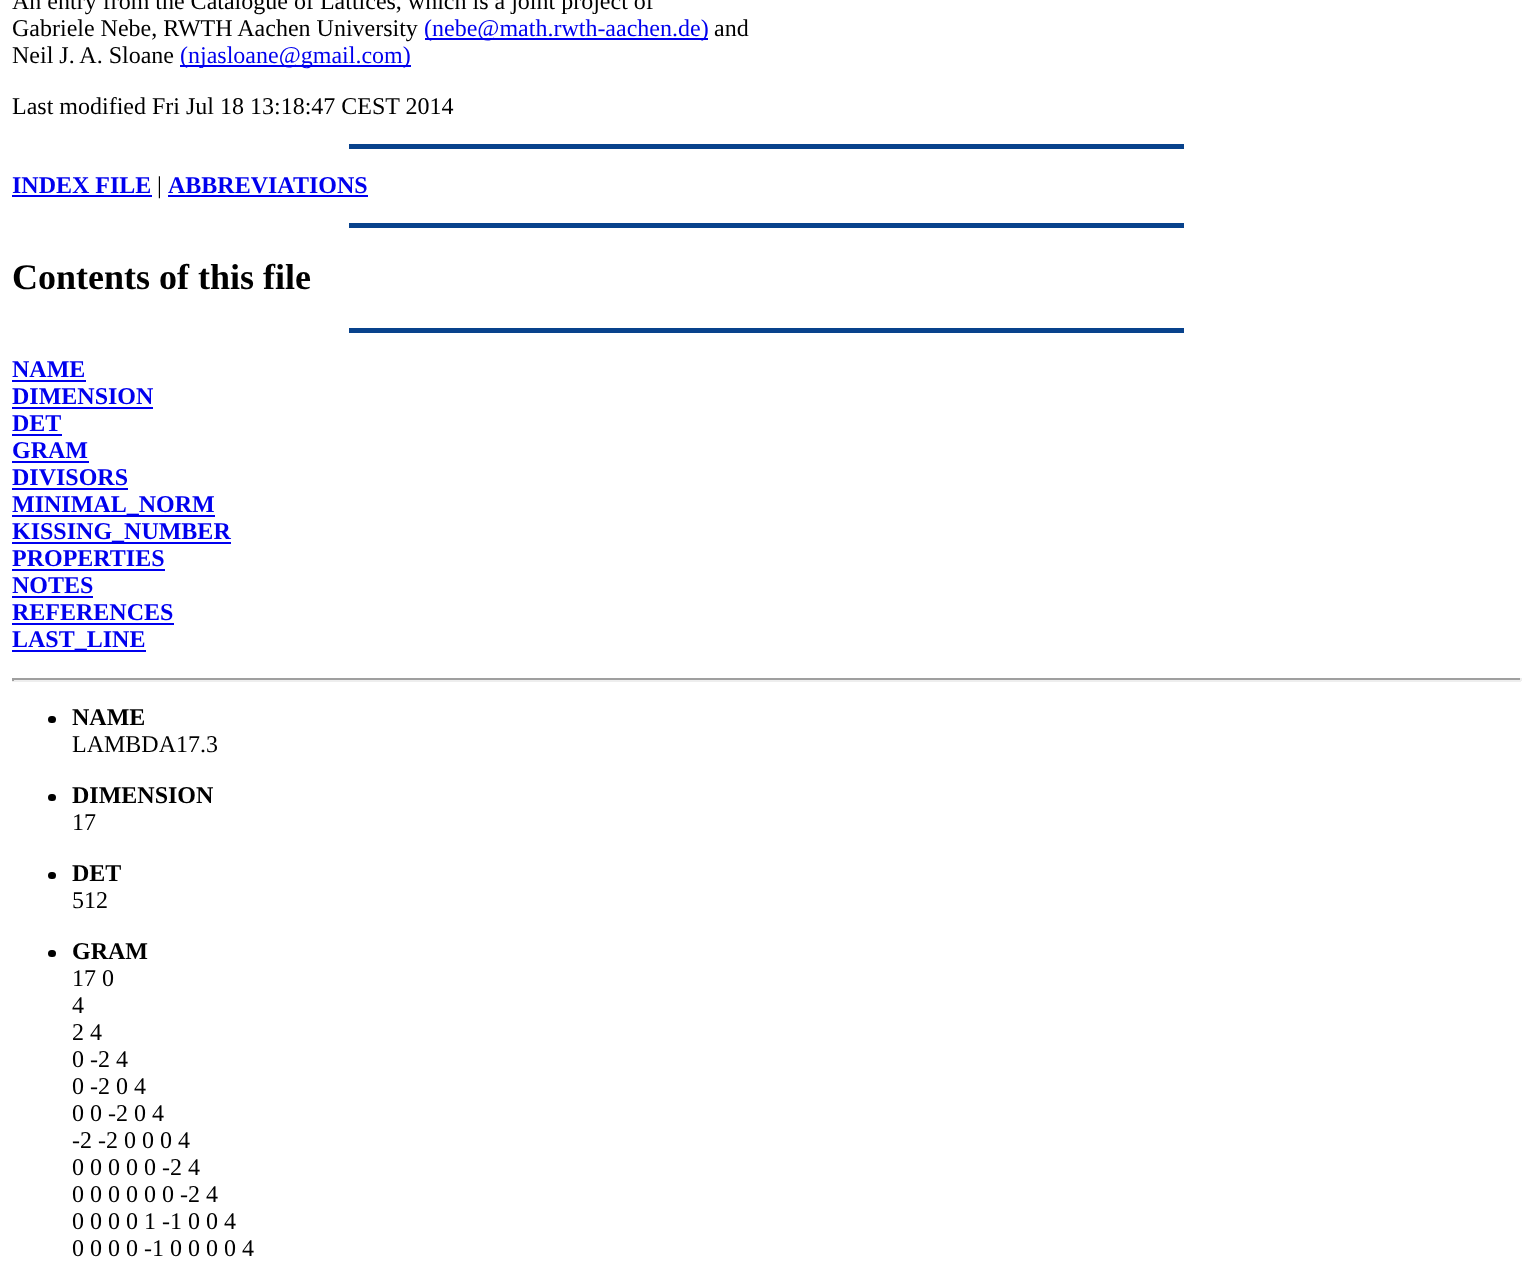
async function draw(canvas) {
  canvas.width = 1533;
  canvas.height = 1269;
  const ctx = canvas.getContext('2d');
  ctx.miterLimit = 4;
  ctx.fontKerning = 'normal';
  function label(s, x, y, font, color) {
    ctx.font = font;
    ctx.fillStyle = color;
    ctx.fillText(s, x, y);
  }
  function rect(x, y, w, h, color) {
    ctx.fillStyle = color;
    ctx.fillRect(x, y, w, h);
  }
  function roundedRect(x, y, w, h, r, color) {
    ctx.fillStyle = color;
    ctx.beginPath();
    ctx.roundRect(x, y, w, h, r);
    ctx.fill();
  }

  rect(0, 0, 1533, 1269, '#fff');
  label('An entry from the Catalogue of Lattices, which is a joint project of', 12, 9, '24px Liberation Serif', '#000');
  label('Gabriele Nebe, RWTH Aachen University', 12, 36, '24px Liberation Serif', '#000');
  rect(425, 38, 283, 2, '#00e');
  label('(nebe@math.rwth-aachen.de)', 424, 36, '24px Liberation Serif', '#00e');
  label('and', 714, 36, '24px Liberation Serif', '#000');
  label('Neil J. A. Sloane', 12, 63, '24px Liberation Serif', '#000');
  rect(180, 65, 231, 2, '#00e');
  label('(njasloane@gmail.com)', 180, 63, '24px Liberation Serif', '#00e');
  label('Last modified Fri Jul 18 13:18:47 CEST 2014', 12, 114, '24px Liberation Serif', '#000');
  rect(349, 144, 835, 5, '#08428c');
  label('INDEX FILE', 12, 193, 'bold 24px Liberation Serif', '#00e');
  rect(12, 195, 140, 2, '#00e');
  label('|', 157, 193, '24px Liberation Serif', '#000');
  label('ABBREVIATIONS', 168, 193, 'bold 24px Liberation Serif', '#00e');
  rect(168, 195, 200, 2, '#00e');
  rect(349, 223, 835, 5, '#08428c');
  label('Contents of this file', 12, 289, 'bold 36px Liberation Serif', '#000');
  rect(349, 328, 835, 5, '#08428c');
  label('NAME', 12, 377, 'bold 24px Liberation Serif', '#00e');
  rect(12, 380, 74, 2, '#00e');
  label('DIMENSION', 12, 404, 'bold 24px Liberation Serif', '#00e');
  rect(12, 407, 141, 2, '#00e');
  label('DET', 12, 431, 'bold 24px Liberation Serif', '#00e');
  rect(12, 434, 50, 2, '#00e');
  label('GRAM', 12, 458, 'bold 24px Liberation Serif', '#00e');
  rect(12, 461, 77, 2, '#00e');
  label('DIVISORS', 12, 485, 'bold 24px Liberation Serif', '#00e');
  rect(12, 488, 116, 2, '#00e');
  rect(12, 515, 203, 2, '#00e');
  label('MINIMAL_NORM', 12, 512, 'bold 24px Liberation Serif', '#00e');
  rect(12, 542, 219, 2, '#00e');
  label('KISSING_NUMBER', 12, 539, 'bold 24px Liberation Serif', '#00e');
  label('PROPERTIES', 12, 566, 'bold 24px Liberation Serif', '#00e');
  rect(12, 569, 153, 2, '#00e');
  label('NOTES', 12, 593, 'bold 24px Liberation Serif', '#00e');
  rect(12, 596, 81, 2, '#00e');
  label('REFERENCES', 12, 620, 'bold 24px Liberation Serif', '#00e');
  rect(12, 623, 162, 2, '#00e');
  rect(12, 650, 134, 2, '#00e');
  label('LAST_LINE', 12, 647, 'bold 24px Liberation Serif', '#00e');
  rect(12, 678, 1509, 2, '#9f9f9f');
  rect(1520, 678, 2, 3, '#eee');
  rect(12, 680, 1509, 2, '#eee');
  rect(12, 678, 2, 3, '#9f9f9f');
  roundedRect(48, 716, 8, 7, 3.5, '#000');
  label('NAME', 72, 725, 'bold 24px Liberation Serif', '#000');
  label('LAMBDA17.3', 72, 752, '24px Liberation Serif', '#000');
  roundedRect(48, 794, 8, 7, 3.5, '#000');
  label('DIMENSION', 72, 803, 'bold 24px Liberation Serif', '#000');
  label('17', 72, 830, '24px Liberation Serif', '#000');
  roundedRect(48, 872, 8, 7, 3.5, '#000');
  label('DET', 72, 881, 'bold 24px Liberation Serif', '#000');
  label('512', 72, 908, '24px Liberation Serif', '#000');
  roundedRect(48, 950, 8, 7, 3.5, '#000');
  label('GRAM', 72, 959, 'bold 24px Liberation Serif', '#000');
  label('17 0', 72, 986, '24px Liberation Serif', '#000');
  label('4', 72, 1013, '24px Liberation Serif', '#000');
  label('2 4', 72, 1040, '24px Liberation Serif', '#000');
  label('0 -2 4', 72, 1067, '24px Liberation Serif', '#000');
  label('0 -2 0 4', 72, 1094, '24px Liberation Serif', '#000');
  label('0 0 -2 0 4', 72, 1121, '24px Liberation Serif', '#000');
  label('-2 -2 0 0 0 4', 72, 1148, '24px Liberation Serif', '#000');
  label('0 0 0 0 0 -2 4', 72, 1175, '24px Liberation Serif', '#000');
  label('0 0 0 0 0 0 -2 4', 72, 1202, '24px Liberation Serif', '#000');
  label('0 0 0 0 1 -1 0 0 4', 72, 1229, '24px Liberation Serif', '#000');
  label('0 0 0 0 -1 0 0 0 0 4', 72, 1256, '24px Liberation Serif', '#000');
}

draw(document.querySelector('canvas'));
